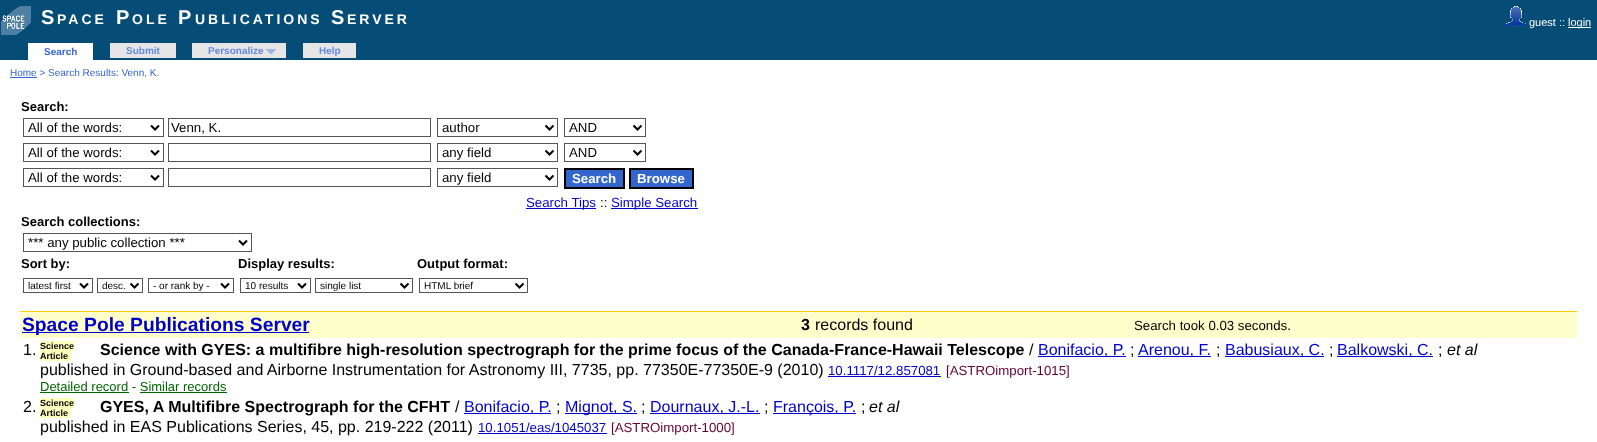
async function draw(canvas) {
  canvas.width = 1597;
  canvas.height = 442;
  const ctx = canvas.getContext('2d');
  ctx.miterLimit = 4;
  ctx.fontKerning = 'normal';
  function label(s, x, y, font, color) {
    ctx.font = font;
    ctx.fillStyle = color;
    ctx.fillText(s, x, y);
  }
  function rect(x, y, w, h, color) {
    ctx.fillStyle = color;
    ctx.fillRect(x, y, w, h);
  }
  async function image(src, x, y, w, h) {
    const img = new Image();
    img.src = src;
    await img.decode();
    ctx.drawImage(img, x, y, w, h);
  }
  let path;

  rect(0, 0, 1597, 442, '#fff');
  rect(0, 0, 1597, 60, '#054c76');
  await image('assets/img1.png', 1, 6, 30, 29);
  ctx.letterSpacing = '3px';
  label('S', 41, 24, 'bold 20px Liberation Sans', '#fff');
  label('PACE', 57, 24, 'bold 14px Liberation Sans', '#fff');
  label('P', 116, 24, 'bold 20px Liberation Sans', '#fff');
  label('OLE', 132, 24, 'bold 14px Liberation Sans', '#fff');
  label('P', 178, 24, 'bold 20px Liberation Sans', '#fff');
  label('UBLICATIONS', 195, 24, 'bold 14px Liberation Sans', '#fff');
  label('S', 331, 24, 'bold 20px Liberation Sans', '#fff');
  label('ERVER', 347, 24, 'bold 14px Liberation Sans', '#fff');
  await image('assets/img2.png', 1506, 6, 20, 20);
  ctx.letterSpacing = '0px';
  label('guest ::', 1529, 26, '11px Liberation Sans', '#fff');
  rect(1568, 27, 23, 1, '#fff');
  label('login', 1568, 26, '11px Liberation Sans', '#fff');
  rect(28, 43, 65, 17, '#fff');
  label('Search', 44, 55, 'bold 10px Liberation Sans', '#36c');
  rect(110, 43, 66, 15, '#e6e6e6');
  label('Submit', 126, 54, 'bold 10px Liberation Sans', '#68d');
  rect(192, 43, 94, 15, '#e6e6e6');
  label('Personalize', 208, 54, 'bold 10px Liberation Sans', '#68d');
  await image('assets/img3.png', 266, 49, 10, 5);
  rect(303, 43, 53, 15, '#e6e6e6');
  label('Help', 319, 54, 'bold 10px Liberation Sans', '#68d');
  rect(10, 77, 27, 1, '#36c');
  label('Home > Search Results: Venn, K.', 10, 76, '10px Liberation Sans', '#36c');
  label('Search:', 21, 111, 'bold 13px Liberation Sans', '#000');
  ctx.strokeStyle = '#555';
  ctx.strokeRect(23.5, 118.5, 140, 18);
  path = new Path2D('M151 125.5L155 129.5L159 125.5');
  ctx.strokeStyle = '#000';
  ctx.lineWidth = 2;
  ctx.stroke(path);
  label('All of the words:', 28, 132, '13.25px Liberation Sans', '#000');
  ctx.strokeStyle = '#555';
  ctx.lineWidth = 1;
  ctx.strokeRect(168.5, 118.5, 262, 18);
  label('Venn, K.', 171, 132, '13.25px Liberation Sans', '#000');
  ctx.strokeRect(437.5, 118.5, 120, 18);
  path = new Path2D('M545.5 125.5L549.5 129.5L553.5 125.5');
  ctx.strokeStyle = '#000';
  ctx.lineWidth = 2;
  ctx.stroke(path);
  label('author', 442, 132, '13.25px Liberation Sans', '#000');
  ctx.strokeStyle = '#555';
  ctx.lineWidth = 1;
  ctx.strokeRect(564.5, 118.5, 81, 18);
  path = new Path2D('M633.5 125.5L637.5 129.5L641.5 125.5');
  ctx.strokeStyle = '#000';
  ctx.lineWidth = 2;
  ctx.stroke(path);
  label('AND', 569, 132, '13.25px Liberation Sans', '#000');
  ctx.strokeStyle = '#555';
  ctx.lineWidth = 1;
  ctx.strokeRect(23.5, 143.5, 140, 18);
  path = new Path2D('M151 150.5L155 154.5L159 150.5');
  ctx.strokeStyle = '#000';
  ctx.lineWidth = 2;
  ctx.stroke(path);
  label('All of the words:', 28, 157, '13.25px Liberation Sans', '#000');
  ctx.strokeStyle = '#555';
  ctx.lineWidth = 1;
  ctx.strokeRect(168.5, 143.5, 262, 18);
  ctx.strokeRect(437.5, 143.5, 120, 18);
  path = new Path2D('M545.5 150.5L549.5 154.5L553.5 150.5');
  ctx.strokeStyle = '#000';
  ctx.lineWidth = 2;
  ctx.stroke(path);
  label('any field', 442, 157, '13.25px Liberation Sans', '#000');
  ctx.strokeStyle = '#555';
  ctx.lineWidth = 1;
  ctx.strokeRect(564.5, 143.5, 81, 18);
  path = new Path2D('M633.5 150.5L637.5 154.5L641.5 150.5');
  ctx.strokeStyle = '#000';
  ctx.lineWidth = 2;
  ctx.stroke(path);
  label('AND', 569, 157, '13.25px Liberation Sans', '#000');
  ctx.strokeStyle = '#555';
  ctx.lineWidth = 1;
  ctx.strokeRect(23.5, 168.5, 140, 18);
  path = new Path2D('M151 175.5L155 179.5L159 175.5');
  ctx.strokeStyle = '#000';
  ctx.lineWidth = 2;
  ctx.stroke(path);
  label('All of the words:', 28, 182, '13.25px Liberation Sans', '#000');
  ctx.strokeStyle = '#555';
  ctx.lineWidth = 1;
  ctx.strokeRect(168.5, 168.5, 262, 18);
  ctx.strokeRect(437.5, 168.5, 120, 18);
  path = new Path2D('M545.5 175.5L549.5 179.5L553.5 175.5');
  ctx.strokeStyle = '#000';
  ctx.lineWidth = 2;
  ctx.stroke(path);
  label('any field', 442, 182, '13.25px Liberation Sans', '#000');
  ctx.fillStyle = '#36c';
  ctx.beginPath();
  ctx.rect(565, 169, 59, 19);
  ctx.fill();
  ctx.stroke();
  label('Search', 572, 183, 'bold 13.25px Liberation Sans', '#fff');
  ctx.fillStyle = '#36c';
  ctx.beginPath();
  ctx.rect(630, 169, 63, 19);
  ctx.fill();
  ctx.stroke();
  label('Browse', 637, 183, 'bold 13.25px Liberation Sans', '#fff');
  rect(526, 208, 70, 1, '#00c');
  label('Search Tips', 526, 207, '13.25px Liberation Sans', '#00c');
  label('::', 600, 207, '13.25px Liberation Sans', '#000');
  rect(611, 208, 87, 1, '#00c');
  label('Simple Search', 611, 207, '13.25px Liberation Sans', '#00c');
  label('Search collections:', 21, 226, 'bold 13px Liberation Sans', '#000');
  ctx.strokeStyle = '#555';
  ctx.lineWidth = 1;
  ctx.strokeRect(23.5, 233.5, 228, 18);
  path = new Path2D('M239 240.5L243 244.5L247 240.5');
  ctx.strokeStyle = '#000';
  ctx.lineWidth = 2;
  ctx.stroke(path);
  label('*** any public collection ***', 28, 247, '13.25px Liberation Sans', '#000');
  label('Sort by:', 21, 268, 'bold 13px Liberation Sans', '#000');
  label('Display results:', 238, 268, 'bold 13px Liberation Sans', '#000');
  label('Output format:', 417, 268, 'bold 13px Liberation Sans', '#000');
  ctx.strokeStyle = '#555';
  ctx.lineWidth = 1;
  ctx.strokeRect(23.5, 278.5, 69, 14);
  path = new Path2D('M80 283.5L84 287.5L88 283.5');
  ctx.strokeStyle = '#000';
  ctx.lineWidth = 2;
  ctx.stroke(path);
  label('latest first', 28, 289, '10px Liberation Sans', '#000');
  ctx.strokeStyle = '#555';
  ctx.lineWidth = 1;
  ctx.strokeRect(97.5, 278.5, 45, 14);
  path = new Path2D('M130.5 283.5L134.5 287.5L138.5 283.5');
  ctx.strokeStyle = '#000';
  ctx.lineWidth = 2;
  ctx.stroke(path);
  label('desc.', 102, 289, '10px Liberation Sans', '#000');
  ctx.strokeStyle = '#555';
  ctx.lineWidth = 1;
  ctx.strokeRect(148.5, 278.5, 85, 14);
  path = new Path2D('M221 283.5L225 287.5L229 283.5');
  ctx.strokeStyle = '#000';
  ctx.lineWidth = 2;
  ctx.stroke(path);
  label('- or rank by -', 153, 289, '10px Liberation Sans', '#000');
  ctx.strokeStyle = '#555';
  ctx.lineWidth = 1;
  ctx.strokeRect(240.5, 278.5, 70, 14);
  path = new Path2D('M298 283.5L302 287.5L306 283.5');
  ctx.strokeStyle = '#000';
  ctx.lineWidth = 2;
  ctx.stroke(path);
  label('10 results', 245, 289, '10px Liberation Sans', '#000');
  ctx.strokeStyle = '#555';
  ctx.lineWidth = 1;
  ctx.strokeRect(315.5, 278.5, 97, 14);
  path = new Path2D('M400.5 283.5L404.5 287.5L408.5 283.5');
  ctx.strokeStyle = '#000';
  ctx.lineWidth = 2;
  ctx.stroke(path);
  label('single list', 320, 289, '10px Liberation Sans', '#000');
  ctx.strokeStyle = '#555';
  ctx.lineWidth = 1;
  ctx.strokeRect(419.5, 278.5, 108, 14);
  path = new Path2D('M515.5 283.5L519.5 287.5L523.5 283.5');
  ctx.strokeStyle = '#000';
  ctx.lineWidth = 2;
  ctx.stroke(path);
  label('HTML brief', 424, 289, '10px Liberation Sans', '#000');
  rect(20, 311, 1557, 1, '#fc0');
  rect(20, 312, 1557, 26, '#ffc');
  rect(22, 332, 287, 1, '#00c');
  label('Space Pole Publications Server', 22, 331, 'bold 19.25px Liberation Sans', '#00c');
  label('3', 801, 330, 'bold 16px Liberation Sans', '#000');
  label('records found', 815, 330, '16px Liberation Sans', '#000');
  label('Search took 0.03 seconds.', 1134, 330, '13.25px Liberation Sans', '#000');
  label('1.', 23, 355, '16px Liberation Sans', '#000');
  rect(40, 341, 34, 10, '#ffffbd');
  label('Science', 40, 349, 'bold 9px Liberation Sans', '#000');
  rect(40, 351, 31, 10, '#ffffbd');
  label('Article', 40, 359, 'bold 9px Liberation Sans', '#000');
  label('Science with GYES: a multifibre high-resolution spectrograph for the prime focus of the Canada-France-Hawaii Telescope', 100, 355, 'bold 16px Liberation Sans', '#000');
  label('/', 1029, 355, '16px Liberation Sans', '#000');
  rect(1038, 356, 88, 1, '#00c');
  label('Bonifacio, P.', 1038, 355, '16px Liberation Sans', '#00c');
  label(';', 1130, 355, '16px Liberation Sans', '#000');
  rect(1138, 356, 73, 1, '#00c');
  label('Arenou, F.', 1138, 355, '16px Liberation Sans', '#00c');
  label(';', 1216, 355, '16px Liberation Sans', '#000');
  rect(1225, 356, 99, 1, '#00c');
  label('Babusiaux, C.', 1225, 355, '16px Liberation Sans', '#00c');
  label(';', 1329, 355, '16px Liberation Sans', '#000');
  rect(1337, 356, 96, 1, '#00c');
  label('Balkowski, C.', 1337, 355, '16px Liberation Sans', '#00c');
  label(';', 1438, 355, '16px Liberation Sans', '#000');
  label('et al', 1447, 355, 'italic 16px Liberation Sans', '#000');
  label('published in Ground-based and Airborne Instrumentation for Astronomy III, 7735, pp. 77350E-77350E-9 (2010)', 40, 375, '16px Liberation Sans', '#000');
  label('10.1117/12.857081', 828, 375, '13.25px Liberation Sans', '#00c');
  rect(828, 376, 113, 1, '#00c');
  label('[ASTROimport-1015]', 946, 375, '13.25px Liberation Sans', '#603');
  label('Detailed record - Similar records', 40, 391, '13px Liberation Sans', '#060');
  rect(40, 392, 89, 1, '#060');
  rect(140, 392, 87, 1, '#060');
  label('2.', 23, 412, '16px Liberation Sans', '#000');
  rect(40, 398, 34, 10, '#ffffbd');
  label('Science', 40, 406, 'bold 9px Liberation Sans', '#000');
  rect(40, 408, 31, 10, '#ffffbd');
  label('Article', 40, 416, 'bold 9px Liberation Sans', '#000');
  label('GYES, A Multifibre Spectrograph for the CFHT', 100, 412, 'bold 16px Liberation Sans', '#000');
  label('/', 455, 412, '16px Liberation Sans', '#000');
  rect(464, 413, 87, 1, '#00c');
  label('Bonifacio, P.', 464, 412, '16px Liberation Sans', '#00c');
  label(';', 556, 412, '16px Liberation Sans', '#000');
  rect(565, 413, 72, 1, '#00c');
  label('Mignot, S.', 565, 412, '16px Liberation Sans', '#00c');
  label(';', 641, 412, '16px Liberation Sans', '#000');
  rect(650, 413, 110, 1, '#00c');
  label('Dournaux, J.-L.', 650, 412, '16px Liberation Sans', '#00c');
  label(';', 764, 412, '16px Liberation Sans', '#000');
  rect(773, 413, 83, 1, '#00c');
  label('François, P.', 773, 412, '16px Liberation Sans', '#00c');
  label(';', 861, 412, '16px Liberation Sans', '#000');
  label('et al', 869, 412, 'italic 16px Liberation Sans', '#000');
  label('published in EAS Publications Series, 45, pp. 219-222 (2011)', 40, 432, '16px Liberation Sans', '#000');
  label('10.1051/eas/1045037', 478, 432, '13.25px Liberation Sans', '#00c');
  rect(478, 433, 129, 1, '#00c');
  label('[ASTROimport-1000]', 611, 432, '13.25px Liberation Sans', '#603');
}

draw(document.querySelector('canvas'));
